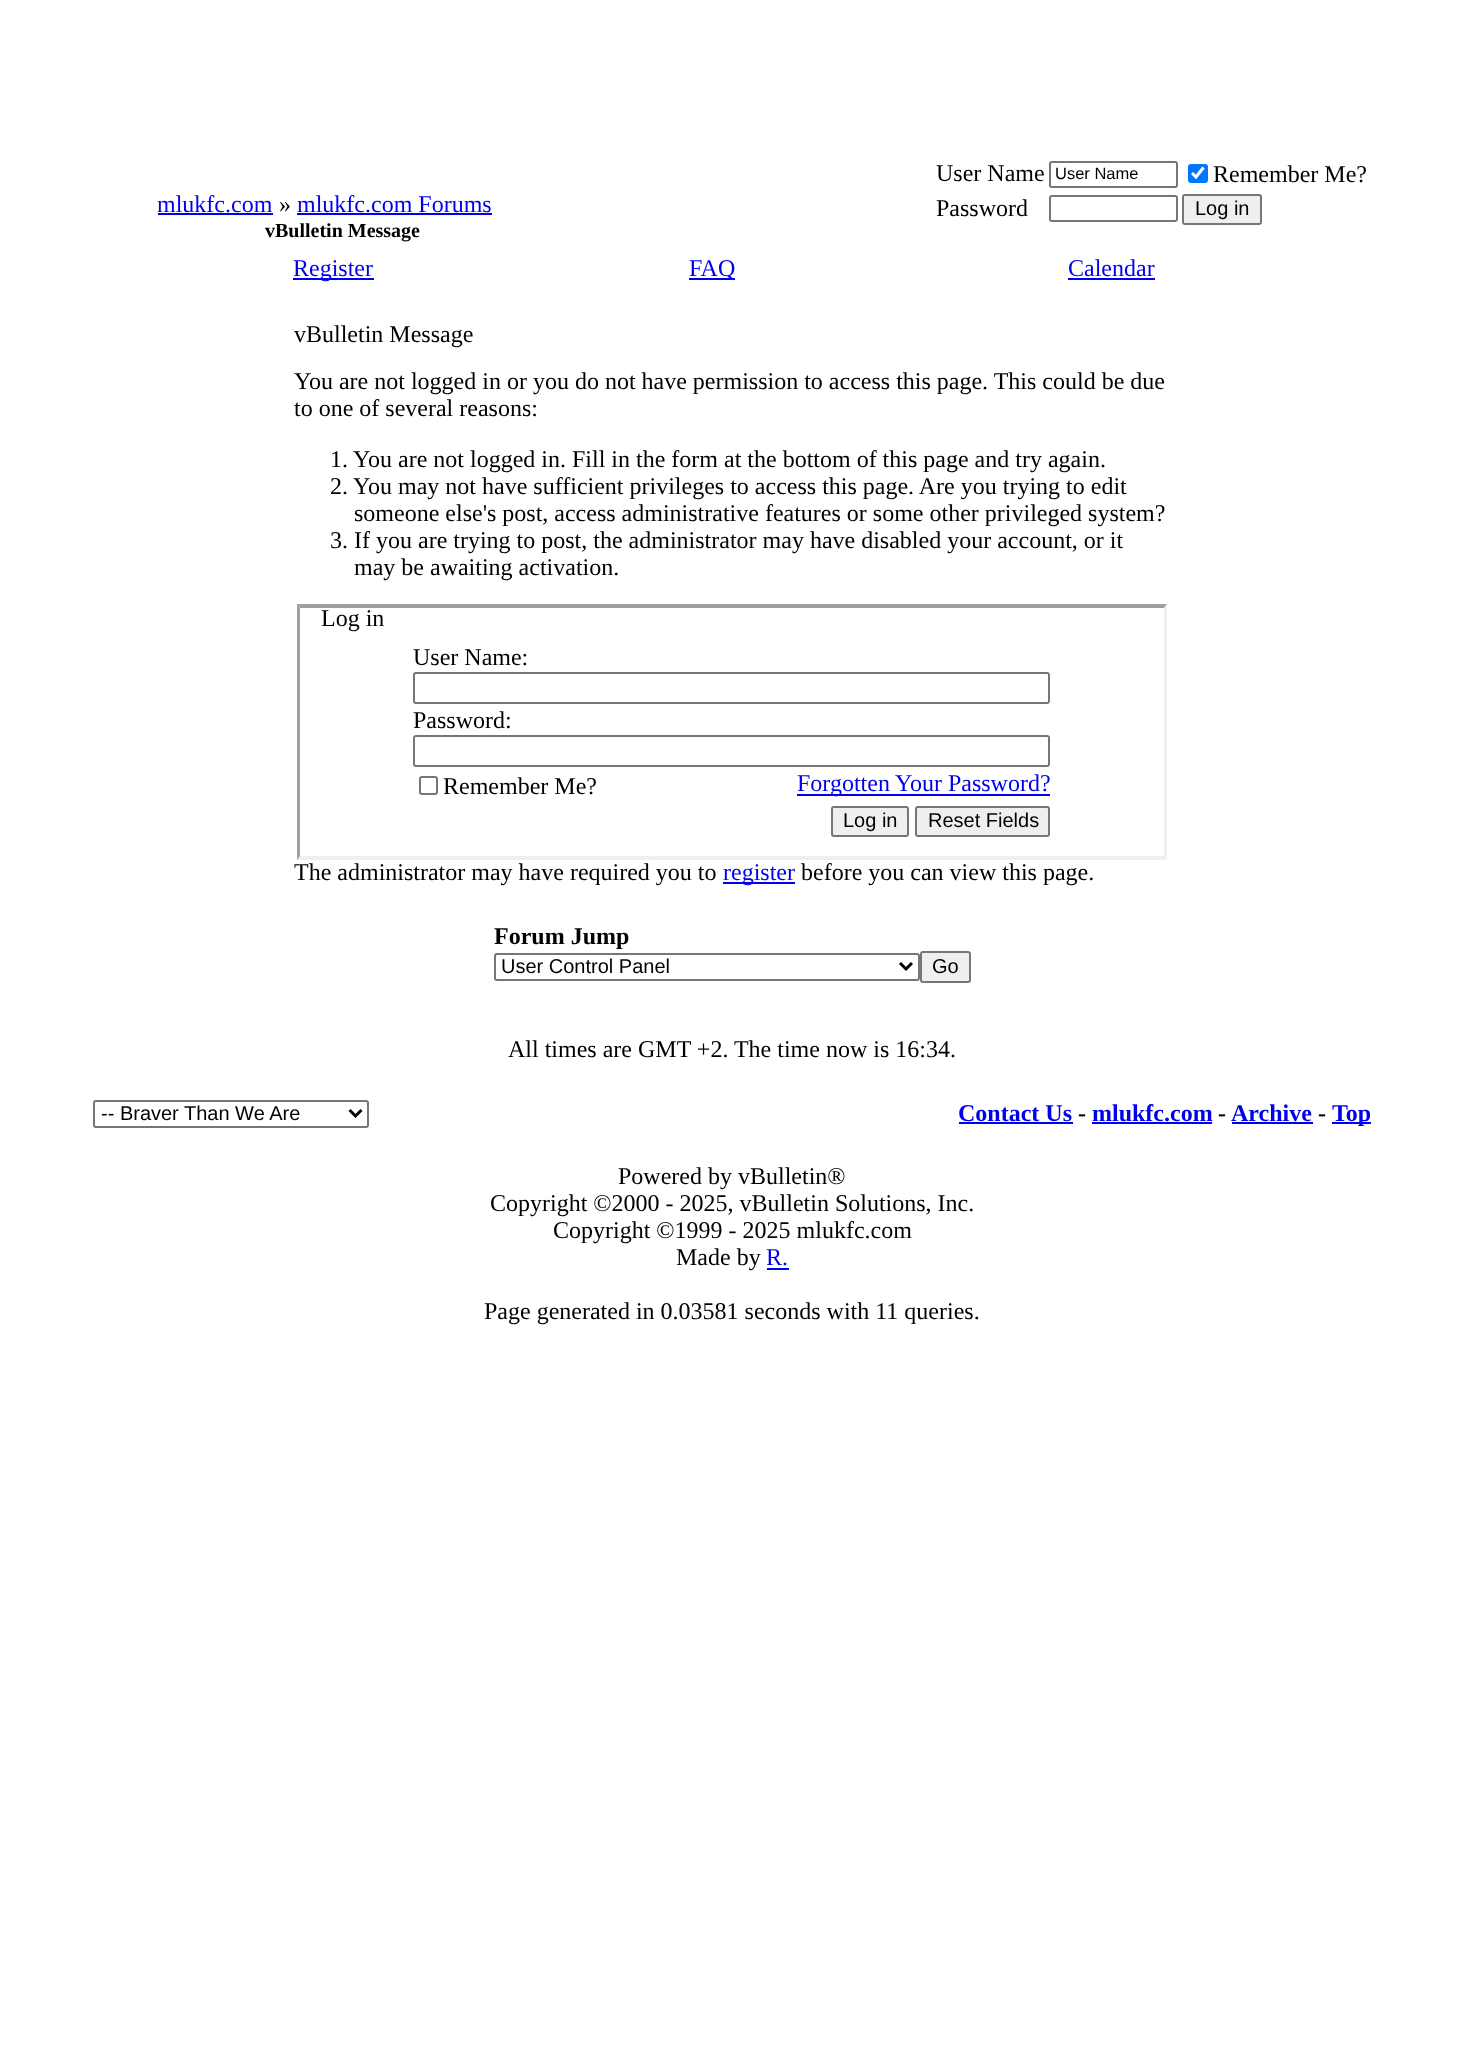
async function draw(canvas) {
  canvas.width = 1463;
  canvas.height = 2058;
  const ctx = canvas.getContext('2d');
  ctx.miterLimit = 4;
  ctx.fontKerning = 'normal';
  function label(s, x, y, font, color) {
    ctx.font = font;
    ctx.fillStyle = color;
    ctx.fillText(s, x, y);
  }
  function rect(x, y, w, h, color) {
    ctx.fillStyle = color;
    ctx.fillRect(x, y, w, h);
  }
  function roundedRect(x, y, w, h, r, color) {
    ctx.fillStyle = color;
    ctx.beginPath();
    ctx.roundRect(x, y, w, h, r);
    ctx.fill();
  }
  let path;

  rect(0, 0, 1463, 2058, '#fff');
  label('mlukfc.com', 157, 212, '24px Liberation Serif', '#00e');
  rect(158, 213, 115, 2, '#00e');
  label('»', 279, 212, '24px Liberation Serif', '#000');
  label('mlukfc.com Forums', 297, 212, '24px Liberation Serif', '#00e');
  rect(297, 213, 195, 2, '#00e');
  label('vBulletin Message', 265, 237, 'bold 20px Liberation Serif', '#000');
  label('User Name', 936, 181, '24px Liberation Serif', '#000');
  ctx.beginPath();
  ctx.roundRect(1050, 162, 127, 25, 2);
  ctx.strokeStyle = '#767676';
  ctx.lineWidth = 2;
  ctx.stroke();
  label('User Name', 1055, 179, '16.5px Liberation Sans', '#000');
  roundedRect(1188, 164, 20, 19, 3, '#0075ff');
  path = new Path2D('M1192 173L1196 177L1203.5 167.5');
  ctx.strokeStyle = '#fff';
  ctx.lineWidth = 3.1;
  ctx.stroke(path);
  label('Remember Me?', 1213, 182, '24px Liberation Serif', '#000');
  label('Password', 936, 216, '24px Liberation Serif', '#000');
  ctx.beginPath();
  ctx.roundRect(1050, 196, 127, 25, 2);
  ctx.strokeStyle = '#767676';
  ctx.lineWidth = 2;
  ctx.stroke();
  ctx.fillStyle = '#efefef';
  ctx.beginPath();
  ctx.roundRect(1183, 195, 78, 29, 2);
  ctx.fill();
  ctx.stroke();
  label('Log in', 1195, 215, '20px Liberation Sans', '#000');
  rect(293, 278, 81, 2, '#00e');
  label('Register', 293, 276, '24px Liberation Serif', '#00e');
  rect(689, 278, 46, 2, '#00e');
  label('FAQ', 689, 276, '24px Liberation Serif', '#00e');
  label('Calendar', 1068, 276, '24px Liberation Serif', '#00e');
  rect(1068, 278, 87, 2, '#00e');
  label('vBulletin Message', 294, 342, '24px Liberation Serif', '#000');
  label('You are not logged in or you do not have permission to access this page. This could be due', 294, 389, '24px Liberation Serif', '#000');
  label('to one of several reasons:', 294, 416, '24px Liberation Serif', '#000');
  label('1. You are not logged in. Fill in the form at the bottom of this page and try again.', 330, 467, '24px Liberation Serif', '#000');
  label('2. You may not have sufficient privileges to access this page. Are you trying to edit', 330, 494, '24px Liberation Serif', '#000');
  label('someone else\'s post, access administrative features or some other privileged system?', 354, 521, '24px Liberation Serif', '#000');
  label('3. If you are trying to post, the administrator may have disabled your account, or it', 330, 548, '24px Liberation Serif', '#000');
  label('may be awaiting activation.', 354, 575, '24px Liberation Serif', '#000');
  ctx.fillStyle = '#9f9f9f';
  path = new Path2D('M297 604H1167L1164 608H300Z');
  ctx.fill(path);
  ctx.fillStyle = '#efefef';
  path = new Path2D('M1167 604V860L1164 856V608Z');
  ctx.fill(path);
  path = new Path2D('M1167 860H297L300 856H1164Z');
  ctx.fill(path);
  ctx.fillStyle = '#9f9f9f';
  path = new Path2D('M297 860V604L300 608V856Z');
  ctx.fill(path);
  label('Log in', 321, 626, '24px Liberation Serif', '#000');
  label('User Name:', 413, 665, '24px Liberation Serif', '#000');
  ctx.beginPath();
  ctx.roundRect(414, 673, 635, 30, 2);
  ctx.stroke();
  label('Password:', 413, 728, '24px Liberation Serif', '#000');
  ctx.beginPath();
  ctx.roundRect(414, 736, 635, 30, 2);
  ctx.stroke();
  ctx.beginPath();
  ctx.roundRect(420, 777, 17, 17, 2);
  ctx.stroke();
  label('Remember Me?', 443, 794, '24px Liberation Serif', '#000');
  rect(797, 794, 253, 2, '#00e');
  label('Forgotten Your Password?', 797, 791, '24px Liberation Serif', '#00e');
  ctx.fillStyle = '#efefef';
  ctx.beginPath();
  ctx.roundRect(832, 807, 76, 29, 2);
  ctx.fill();
  ctx.stroke();
  label('Log in', 843, 827, '20px Liberation Sans', '#000');
  ctx.fillStyle = '#efefef';
  ctx.beginPath();
  ctx.roundRect(916, 807, 133, 29, 2);
  ctx.fill();
  ctx.stroke();
  label('Reset Fields', 928, 827, '20px Liberation Sans', '#000');
  label('The administrator may have required you to', 294, 880, '24px Liberation Serif', '#000');
  rect(723, 882, 72, 2, '#00e');
  label('register', 723, 880, '24px Liberation Serif', '#00e');
  label('before you can view this page.', 801, 880, '24px Liberation Serif', '#000');
  label('Forum Jump', 494, 944, 'bold 24px Liberation Serif', '#000');
  ctx.beginPath();
  ctx.roundRect(495, 954, 424, 26, 2);
  ctx.stroke();
  path = new Path2D('M900 963L906 969L912 963');
  ctx.strokeStyle = '#000';
  ctx.lineWidth = 3;
  ctx.stroke(path);
  label('User Control Panel', 501, 973, '20px Liberation Sans', '#000');
  ctx.fillStyle = '#efefef';
  ctx.beginPath();
  ctx.roundRect(921, 952, 49, 30, 2);
  ctx.fill();
  ctx.strokeStyle = '#767676';
  ctx.lineWidth = 2;
  ctx.stroke();
  label('Go', 932, 973, '20px Liberation Sans', '#000');
  label('All times are GMT +2. The time now is 16:34.', 508, 1057, '24px Liberation Serif', '#000');
  ctx.beginPath();
  ctx.roundRect(94, 1101, 274, 26, 2);
  ctx.stroke();
  path = new Path2D('M349.5 1110L355.5 1116L361.5 1110');
  ctx.strokeStyle = '#000';
  ctx.lineWidth = 3;
  ctx.stroke(path);
  label('-- Braver Than We Are', 101, 1120, '20px Liberation Sans', '#000');
  label('Contact Us', 958, 1121, 'bold 24px Liberation Serif', '#00e');
  rect(959, 1122, 114, 2, '#00e');
  label('-', 1078, 1121, 'bold 24px Liberation Serif', '#000');
  label('mlukfc.com', 1092, 1121, 'bold 24px Liberation Serif', '#00e');
  rect(1092, 1122, 120, 2, '#00e');
  label('-', 1218, 1121, 'bold 24px Liberation Serif', '#000');
  label('Archive', 1231, 1121, 'bold 24px Liberation Serif', '#00e');
  rect(1232, 1122, 81, 2, '#00e');
  label('-', 1318, 1121, 'bold 24px Liberation Serif', '#000');
  rect(1332, 1122, 39, 2, '#00e');
  label('Top', 1332, 1121, 'bold 24px Liberation Serif', '#00e');
  label('Powered by vBulletin®', 618, 1184, '24px Liberation Serif', '#000');
  label('Copyright ©2000 - 2025, vBulletin Solutions, Inc.', 490, 1211, '24px Liberation Serif', '#000');
  label('Copyright ©1999 - 2025 mlukfc.com', 553, 1238, '24px Liberation Serif', '#000');
  label('Made by', 676, 1265, '24px Liberation Serif', '#000');
  label('R.', 766, 1265, '24px Liberation Serif', '#00e');
  rect(767, 1268, 22, 2, '#00e');
  label('Page generated in 0.03581 seconds with 11 queries.', 484, 1319, '24px Liberation Serif', '#000');
}

draw(document.querySelector('canvas'));
